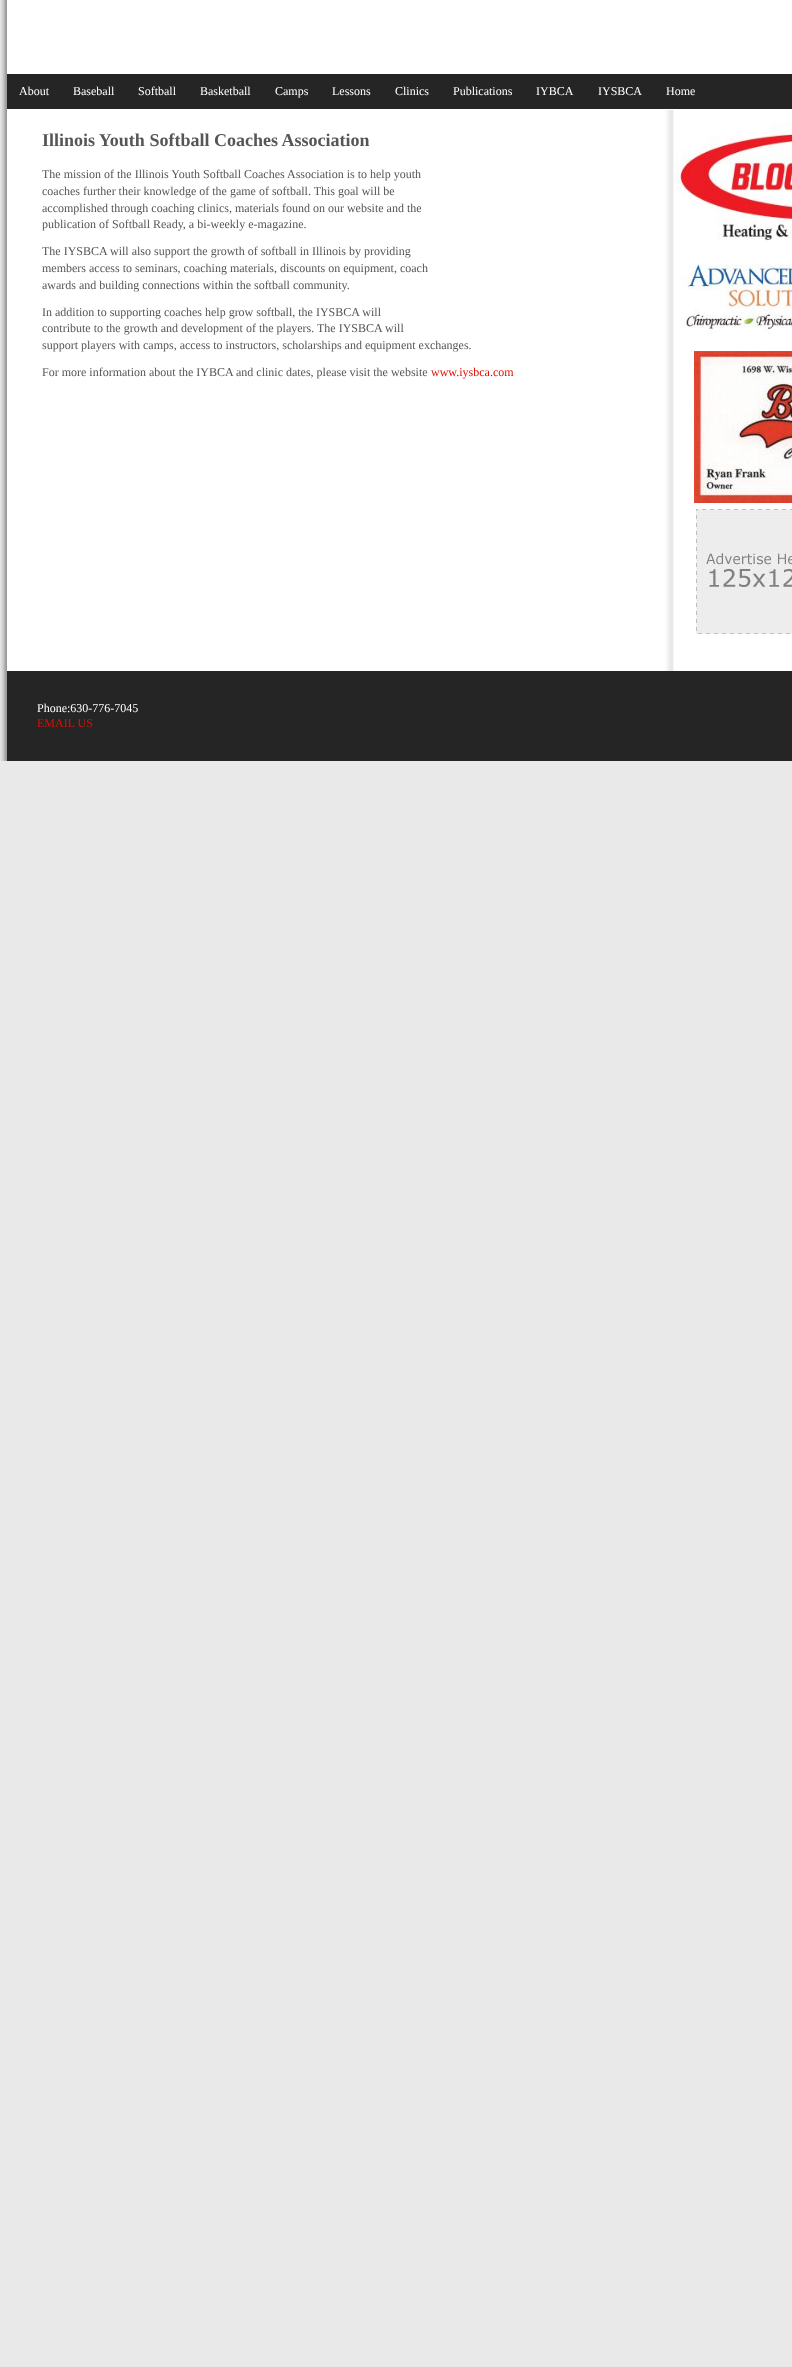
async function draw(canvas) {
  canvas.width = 792;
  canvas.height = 2367;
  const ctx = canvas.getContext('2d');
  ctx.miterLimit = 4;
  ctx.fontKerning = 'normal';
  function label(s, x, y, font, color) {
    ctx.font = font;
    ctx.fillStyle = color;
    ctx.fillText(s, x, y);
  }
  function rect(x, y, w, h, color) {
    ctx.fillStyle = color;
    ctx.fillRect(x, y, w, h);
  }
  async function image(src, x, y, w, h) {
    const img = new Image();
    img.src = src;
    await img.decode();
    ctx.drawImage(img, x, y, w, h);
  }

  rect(0, 0, 792, 2367, '#e9e9e9');
  await image('assets/img1.png', 0, 0, 792, 761);
  rect(665, 0, 9, 110, '#fff');
  rect(7, 74, 785, 35, '#252525');
  label('About', 19, 95, '12px Liberation Serif', '#fff');
  label('Baseball', 73, 95, '12px Liberation Serif', '#fff');
  label('Softball', 138, 95, '12px Liberation Serif', '#fff');
  label('Basketball', 200, 95, '12px Liberation Serif', '#fff');
  label('Camps', 275, 95, '12px Liberation Serif', '#fff');
  label('Lessons', 332, 95, '12px Liberation Serif', '#fff');
  label('Clinics', 395, 95, '12px Liberation Serif', '#fff');
  label('Publications', 453, 95, '12px Liberation Serif', '#fff');
  label('IYBCA', 536, 95, '12px Liberation Serif', '#fff');
  label('IYSBCA', 598, 95, '12px Liberation Serif', '#fff');
  label('Home', 666, 95, '12px Liberation Serif', '#fff');
  label('Illinois Youth Softball Coaches Association', 42, 146, 'bold 18px Liberation Serif', '#565656');
  label('The mission of the Illinois Youth Softball Coaches Association is to help youth', 42, 178, '12px Liberation Serif', '#565656');
  label('coaches further their knowledge of the game of softball. This goal will be', 42, 195, '12px Liberation Serif', '#565656');
  label('accomplished through coaching clinics, materials found on our website and the', 42, 212, '12px Liberation Serif', '#565656');
  label('publication of Softball Ready, a bi-weekly e-magazine.', 42, 228, '12px Liberation Serif', '#565656');
  label('The IYSBCA will also support the growth of softball in Illinois by providing', 42, 255, '12px Liberation Serif', '#565656');
  label('members access to seminars, coaching materials, discounts on equipment, coach', 42, 272, '12px Liberation Serif', '#565656');
  label('awards and building connections within the softball community.', 42, 289, '12px Liberation Serif', '#565656');
  label('In addition to supporting coaches help grow softball, the IYSBCA will', 42, 316, '12px Liberation Serif', '#565656');
  label('contribute to the growth and development of the players. The IYSBCA will', 42, 332, '12px Liberation Serif', '#565656');
  label('support players with camps, access to instructors, scholarships and equipment exchanges.', 42, 349, '12px Liberation Serif', '#565656');
  label('For more information about the IYBCA and clinic dates, please visit the website', 42, 376, '12px Liberation Serif', '#565656');
  label('www.iysbca.com', 431, 376, '12px Liberation Serif', '#dc1000');
  await image('assets/img2.png', 676, 123, 116, 119);
  await image('assets/img3.png', 681, 264, 111, 70);
  await image('assets/img4.png', 694, 351, 98, 152);
  await image('assets/img5.png', 696, 509, 96, 125);
  rect(7, 671, 785, 90, '#252525');
  label('Phone:630-776-7045', 37, 712, '12px Liberation Serif', '#fff');
  label('EMAIL US', 37, 727, '12px Liberation Serif', '#dc1000');
}

draw(document.querySelector('canvas'));
